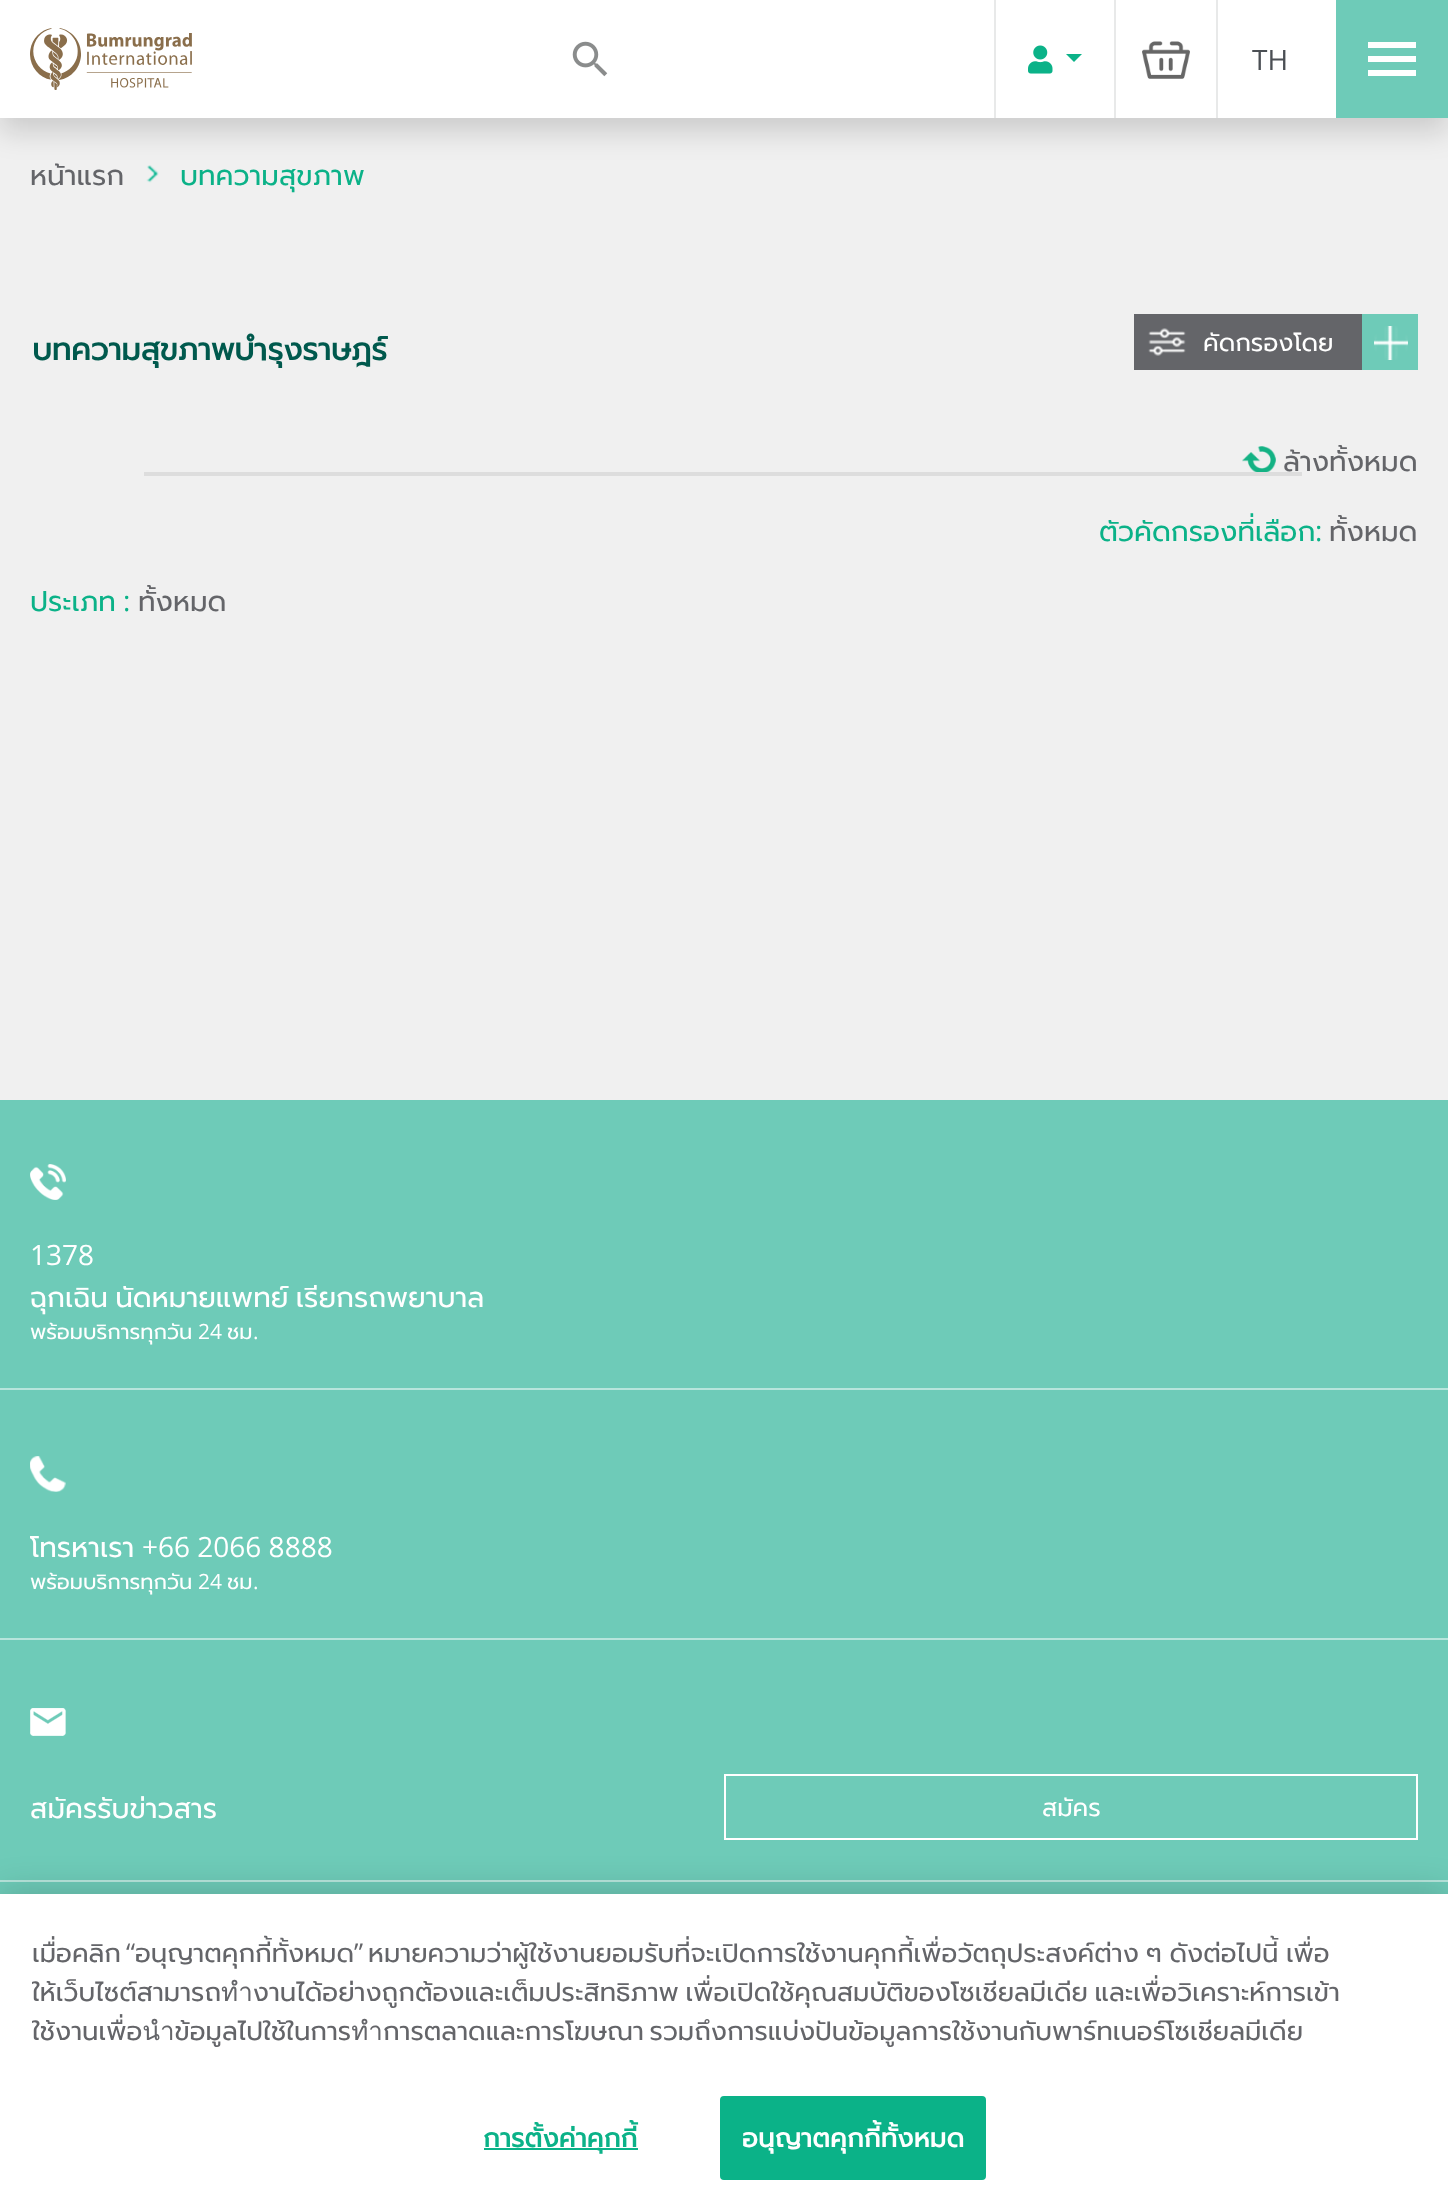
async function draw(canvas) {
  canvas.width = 1448;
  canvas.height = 2208;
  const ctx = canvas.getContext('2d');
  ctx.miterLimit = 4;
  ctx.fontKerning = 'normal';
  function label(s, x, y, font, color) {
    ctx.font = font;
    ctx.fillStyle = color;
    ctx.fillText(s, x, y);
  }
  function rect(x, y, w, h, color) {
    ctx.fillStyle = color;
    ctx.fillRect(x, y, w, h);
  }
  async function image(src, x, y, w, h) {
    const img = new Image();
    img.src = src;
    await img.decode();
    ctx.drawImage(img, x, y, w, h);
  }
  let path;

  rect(0, 0, 1448, 2208, '#f0f0f0');
  ctx.fillStyle = '#00000026';
  ctx.filter = 'blur(14px)';
  ctx.beginPath();
  ctx.rect(0, 14, 1448, 118);
  ctx.fill();
  ctx.filter = 'none';
  rect(0, 0, 1336, 118, '#fff');
  await image('assets/img1.png', 30, 28, 162, 62);
  await image('assets/img2.png', 572, 41, 36, 36);
  rect(994, 0, 2, 118, '#e8e9e9');
  await image('assets/img3.png', 1028, 45, 25, 29);
  ctx.fillStyle = '#0bb288';
  path = new Path2D('M1066 54H1082L1074 62Z');
  ctx.fill(path);
  rect(1114, 0, 2, 118, '#e8e9e9');
  await image('assets/img4.png', 1142, 41, 48, 38);
  rect(1216, 0, 2, 118, '#e8e9e9');
  label('TH', 1252, 70, '28px Open Sans', '#4b4f54');
  rect(1336, 0, 112, 118, '#6ecbb8');
  rect(1368, 42, 48, 6, '#fff');
  rect(1368, 56, 48, 6, '#fff');
  rect(1368, 70, 48, 6, '#fff');
  label('หน้าแรก', 30, 185, '28px Prompt', '#646569');
  await image('assets/img5.png', 146, 165, 13, 18);
  label('บทความสุขภาพ', 180, 185, '28px Prompt', '#0bb288');
  label('บทความสุขภาพบำรุงราษฎร์', 32, 360, 'bold 30.75px Prompt', '#00594d');
  rect(1134, 314, 228, 56, '#646569');
  await image('assets/img6.png', 1148, 328, 38, 28);
  label('คัดกรองโดย', 1203, 351, '24.5px Prompt', '#fff');
  rect(1362, 314, 56, 56, '#6ecbb8');
  await image('assets/img7.png', 1374, 326, 34, 34);
  await image('assets/img8.png', 1242, 446, 34, 26);
  label('ล้างทั้งหมด', 1283, 471, '28px Prompt', '#646569');
  label('ตัวคัดกรองที่เลือก', 1099, 541, '28px Prompt', '#0bb288');
  label(':', 1315, 541, '28px Open Sans', '#0bb288');
  label('ทั้งหมด', 1329, 541, '28px Prompt', '#646569');
  label('ประเภท', 30, 611, '28px Prompt', '#0bb288');
  label(':', 123, 611, '28px Open Sans', '#0bb288');
  label('ทั้งหมด', 138, 611, '28px Prompt', '#646569');
  rect(144, 472, 1158, 4, '#ddd');
  rect(0, 1100, 1448, 794, '#6ecbb8');
  rect(0, 1388, 1448, 2, '#b7e5dc');
  await image('assets/img9.png', 30, 1164, 36, 36);
  label('1378', 30, 1265, '28px Open Sans', '#fff');
  ctx.wordSpacing = '-3px';
  label('ฉุกเฉิน นัดหมายแพทย์ เรียกรถพยาบาล', 30, 1307, '28px Prompt', '#fff');
  ctx.wordSpacing = '0px';
  label('พร้อมบริการทุกวัน', 30, 1339, '21px Prompt', '#fff');
  label('24', 198, 1339, '21px Open Sans', '#fff');
  label('ชม', 227, 1339, '21px Prompt', '#fff');
  label('.', 253, 1339, '21px Open Sans', '#fff');
  rect(0, 1638, 1448, 2, '#b7e5dc');
  await image('assets/img10.png', 30, 1456, 36, 36);
  label('โทรหาเรา', 30, 1557, '28px Prompt', '#fff');
  label('+66 2066 8888', 142, 1557, '28px Open Sans', '#fff');
  label('พร้อมบริการทุกวัน', 30, 1589, '21px Prompt', '#fff');
  label('24', 198, 1589, '21px Open Sans', '#fff');
  label('ชม', 227, 1589, '21px Prompt', '#fff');
  label('.', 253, 1589, '21px Open Sans', '#fff');
  rect(0, 1880, 1448, 2, '#b7e5dc');
  await image('assets/img11.png', 30, 1708, 36, 28);
  label('สมัครรับข่าวสาร', 30, 1818, '28px Prompt', '#fff');
  ctx.strokeStyle = '#fff';
  ctx.lineWidth = 2;
  ctx.strokeRect(725, 1775, 692, 64);
  label('สมัคร', 1042, 1816, '24.5px Prompt', '#fff');
  ctx.fillStyle = '#00000033';
  ctx.filter = 'blur(18px)';
  ctx.beginPath();
  ctx.rect(0, 1894, 1448, 314);
  ctx.fill();
  ctx.filter = 'none';
  rect(0, 1894, 1448, 314, '#fff');
  ctx.save();
  ctx.beginPath();
  ctx.rect(32, 1934, 1312, 142);
  ctx.clip();
  label('เมื่อคลิก', 32, 1962, '26.02px Prompt', '#646569');
  ctx.restore();
  label('“', 126, 1962, '26.02px Open Sans', '#646569');
  label('อนุญาตคุกกี้ทั้งหมด', 135, 1962, '26.02px Prompt', '#646569');
  label('”', 354, 1962, '26.02px Open Sans', '#646569');
  ctx.wordSpacing = '-2px';
  label('หมายความว่าผู้ใช้งานยอมรับที่จะเปิดการใช้งานคุกกี้เพื่อวัตถุประสงค์ต่าง ๆ ดังต่อไปนี้ เพื่อ', 368, 1962, '26.02px Prompt', '#646569');
  ctx.save();
  ctx.beginPath();
  ctx.rect(32, 1934, 1312, 142);
  ctx.clip();
  ctx.wordSpacing = '-3px';
  label('ให้เว็บไซต์สามารถทำงานได้อย่างถูกต้องและเต็มประสิทธิภาพ เพื่อเปิดใช้คุณสมบัติของโซเชียลมีเดีย และเพื่อวิเคราะห์การเข้า', 32, 2001, '26.02px Prompt', '#646569');
  ctx.wordSpacing = '-4px';
  label('ใช้งานเพื่อนำข้อมูลไปใช้ในการทำการตลาดและการโฆษณา รวมถึงการแบ่งปันข้อมูลการใช้งานกับพาร์ทเนอร์โซเชียลมีเดีย', 32, 2040, '26.02px Prompt', '#646569');
  ctx.restore();
  rect(484, 2148, 154, 2, '#0bb288');
  ctx.letterSpacing = '0.25px';
  ctx.wordSpacing = '0px';
  label('การตั้งค่าคุกกี้', 483, 2147, 'bold 26.02px Prompt', '#0bb288');
  ctx.beginPath();
  ctx.roundRect(721, 2097, 264, 82, 3);
  ctx.fill();
  ctx.strokeStyle = '#0bb288';
  ctx.stroke();
  label('อนุญาตคุกกี้ทั้งหมด', 742, 2147, 'bold 26.02px Prompt', '#fff');
}

draw(document.querySelector('canvas'));
